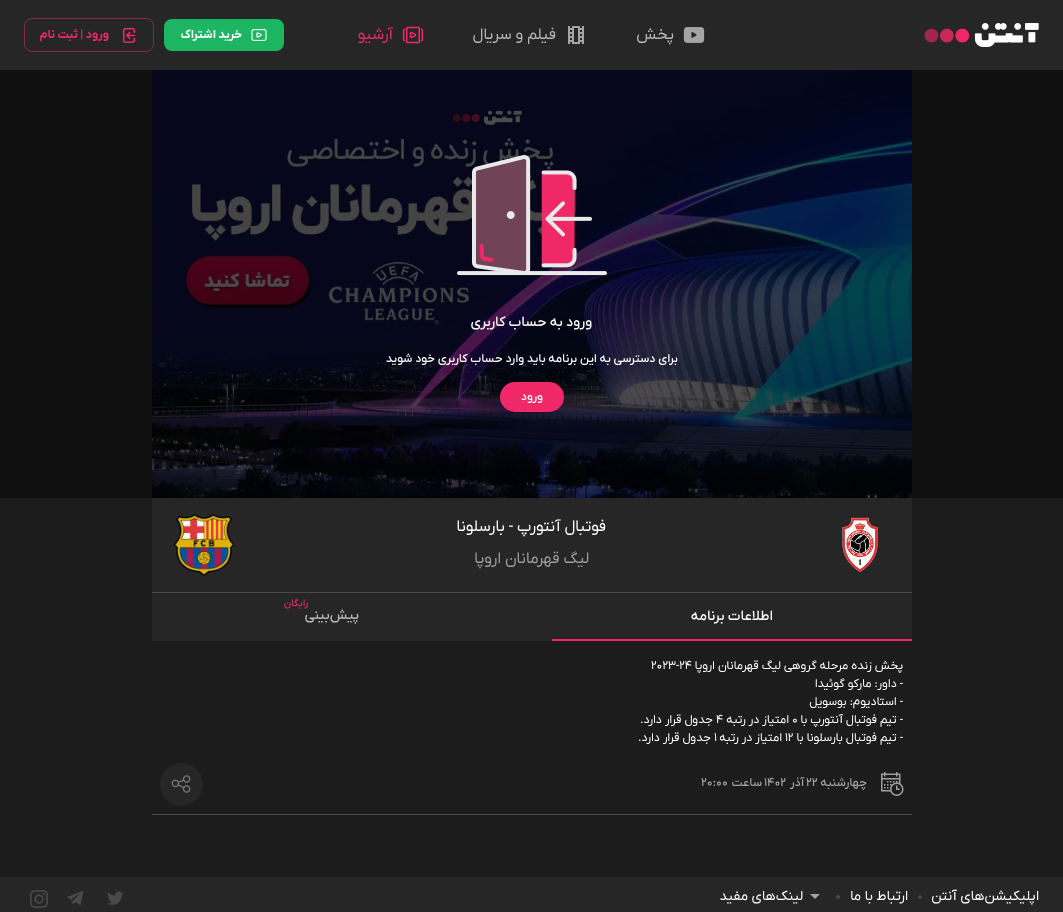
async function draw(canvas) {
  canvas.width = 1063;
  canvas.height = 912;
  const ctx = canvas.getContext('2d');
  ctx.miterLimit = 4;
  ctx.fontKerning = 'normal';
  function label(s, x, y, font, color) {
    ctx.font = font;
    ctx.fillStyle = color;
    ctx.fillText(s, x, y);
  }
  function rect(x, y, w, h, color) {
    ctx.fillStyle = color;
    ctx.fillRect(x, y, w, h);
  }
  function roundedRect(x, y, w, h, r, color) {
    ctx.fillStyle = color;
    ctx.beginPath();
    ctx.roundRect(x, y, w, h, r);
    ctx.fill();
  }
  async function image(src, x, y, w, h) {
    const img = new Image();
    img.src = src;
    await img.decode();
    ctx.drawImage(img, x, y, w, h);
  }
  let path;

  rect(0, 0, 1063, 912, '#1c1c1c');
  rect(0, 0, 1063, 70, '#262626');
  await image('assets/img1.png', 924, 23, 115, 24);
  await image('assets/img2.png', 683, 27, 22, 16);
  ctx.direction = 'rtl';
  label('پخش', 674, 39, '16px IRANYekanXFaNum', '#b8b8b8');
  await image('assets/img3.png', 568, 26, 16, 18);
  label('فیلم و سریال', 556, 39, '16px IRANYekanXFaNum', '#b8b8b8');
  await image('assets/img4.png', 402, 26, 22, 18);
  label('آرشیو', 393, 39, '16px IRANYekanXFaNum', '#f02867');
  roundedRect(164, 19, 120, 32, 8, '#1cb561');
  await image('assets/img5.png', 251, 29, 16, 12);
  label('خرید اشتراک', 242, 38, 'bold 12px IRANYekanXFaNum', '#fff');
  ctx.beginPath();
  ctx.roundRect(24.5, 18.5, 129, 33, 7.5);
  ctx.strokeStyle = '#8b2747';
  ctx.stroke();
  await image('assets/img6.png', 123, 27, 12, 16);
  label('ورود | ثبت نام', 109, 38, 'bold 12px IRANYekanXFaNum', '#f02867');
  rect(0, 70, 1063, 428, '#101010');
  await image('assets/img7.png', 152, 70, 760, 428);
  await image('assets/img8.png', 457, 155, 150, 121);
  label('ورود به حساب کاربری', 592, 326, '500 14px IRANYekanXFaNum', '#fff');
  label('برای دسترسی به این برنامه باید وارد حساب کاربری خود شوید', 678, 362, '500 12px IRANYekanXFaNum', '#fff');
  ctx.fillStyle = '#00000033';
  ctx.filter = 'blur(0.5px)';
  ctx.beginPath();
  ctx.roundRect(502, 387, 60, 26, 13);
  ctx.fill();
  ctx.filter = 'none';
  roundedRect(500, 382, 64, 30, 15, '#f02867');
  label('ورود', 543, 400, '500 12px IRANYekanXFaNum', '#fff');
  rect(152, 498, 760, 94, '#262626');
  rect(152, 592, 760, 1, '#494949');
  await image('assets/img9.png', 842, 517, 36, 55);
  label('فوتبال آنتورپ - بارسلونا', 606, 531, '16px IRANYekanXFaNum', '#fff');
  label('لیگ قهرمانان اروپا', 589, 563, '16px IRANYekanXFaNum', '#9e9e9e');
  await image('assets/img10.png', 173, 514, 62, 62);
  rect(152, 593, 760, 48, '#262626');
  label('اطلاعات برنامه', 773, 620, '500 14px IRANYekanXFaNum', '#fff');
  label('رایگان', 308, 606, '500 10px IRANYekanXFaNum', '#f02867');
  label('پیش‌بینی', 359, 619, '500 14px IRANYekanXFaNum', '#b8b8b8');
  rect(552, 639, 360, 2, '#f02867');
  label('پخش زنده مرحله گروهی لیگ قهرمانان اروپا', 903, 669, '12px IRANYekanXFaNum', '#fff');
  ctx.direction = 'ltr';
  label('2023-24', 651, 669, '12px IRANYekanXFaNum', '#fff');
  ctx.direction = 'rtl';
  label('- داور: مارکو گوئیدا', 903, 687, '12px IRANYekanXFaNum', '#fff');
  label('- استادیوم: بوسویل', 903, 705, '12px IRANYekanXFaNum', '#fff');
  label('- تیم فوتبال آنتورپ با', 903, 723, '12px IRANYekanXFaNum', '#fff');
  ctx.direction = 'ltr';
  label('0', 792, 723, '12px IRANYekanXFaNum', '#fff');
  ctx.direction = 'rtl';
  label('امتیاز در رتبه', 789, 723, '12px IRANYekanXFaNum', '#fff');
  ctx.direction = 'ltr';
  label('4', 716, 723, '12px IRANYekanXFaNum', '#fff');
  ctx.direction = 'rtl';
  label('جدول قرار دارد.', 713, 723, '12px IRANYekanXFaNum', '#fff');
  label('- تیم فوتبال بارسلونا با', 903, 741, '12px IRANYekanXFaNum', '#fff');
  ctx.direction = 'ltr';
  label('12', 785, 741, '12px IRANYekanXFaNum', '#fff');
  ctx.direction = 'rtl';
  label('امتیاز در رتبه', 782, 741, '12px IRANYekanXFaNum', '#fff');
  ctx.direction = 'ltr';
  label('1', 714, 741, '12px IRANYekanXFaNum', '#fff');
  ctx.direction = 'rtl';
  label('جدول قرار دارد.', 711, 741, '12px IRANYekanXFaNum', '#fff');
  await image('assets/img11.png', 881, 772, 23, 24);
  label('چهارشنبه', 867, 786, '500 12px IRANYekanXFaNum', '#a4a4a4');
  ctx.direction = 'ltr';
  label('۲۲', 806, 786, '500 12px IRANYekanXFaNum', '#a4a4a4');
  ctx.direction = 'rtl';
  label('آذر', 804, 786, '500 12px IRANYekanXFaNum', '#a4a4a4');
  ctx.direction = 'ltr';
  label('۱۴۰۲', 764, 786, '500 12px IRANYekanXFaNum', '#a4a4a4');
  ctx.direction = 'rtl';
  label('ساعت', 762, 786, '500 12px IRANYekanXFaNum', '#a4a4a4');
  ctx.direction = 'ltr';
  label('۲۰:۰۰', 701, 786, '500 12px IRANYekanXFaNum', '#a4a4a4');
  ctx.fillStyle = '#262626';
  ctx.beginPath();
  ctx.arc(181.5, 784.5, 21.5, 0, 2 * Math.PI);
  ctx.fill();
  await image('assets/img12.png', 171, 775, 20, 18);
  rect(152, 814, 760, 1, '#494949');
  rect(0, 877, 1063, 35, '#262626');
  ctx.direction = 'rtl';
  label('اپلیکیشن‌های آنتن', 1039, 900, '14px IRANYekanXFaNum', '#fff');
  ctx.fillStyle = '#494949';
  ctx.beginPath();
  ctx.arc(920, 897, 2, 0, 2 * Math.PI);
  ctx.fill();
  label('ارتباط با ما', 908, 900, '14px IRANYekanXFaNum', '#fff');
  ctx.fillStyle = '#494949';
  ctx.beginPath();
  ctx.arc(838, 897, 2, 0, 2 * Math.PI);
  ctx.fill();
  ctx.fillStyle = '#a4a4a4';
  path = new Path2D('M810 894L815 899L820 894Z');
  ctx.fill(path);
  label('لینک‌های مفید', 803, 900, '14px IRANYekanXFaNum', '#fff');
  await image('assets/img13.png', 107, 891, 16, 14);
  await image('assets/img14.png', 67, 891, 17, 14);
  await image('assets/img15.png', 30, 890, 18, 18);
}

draw(document.querySelector('canvas'));
